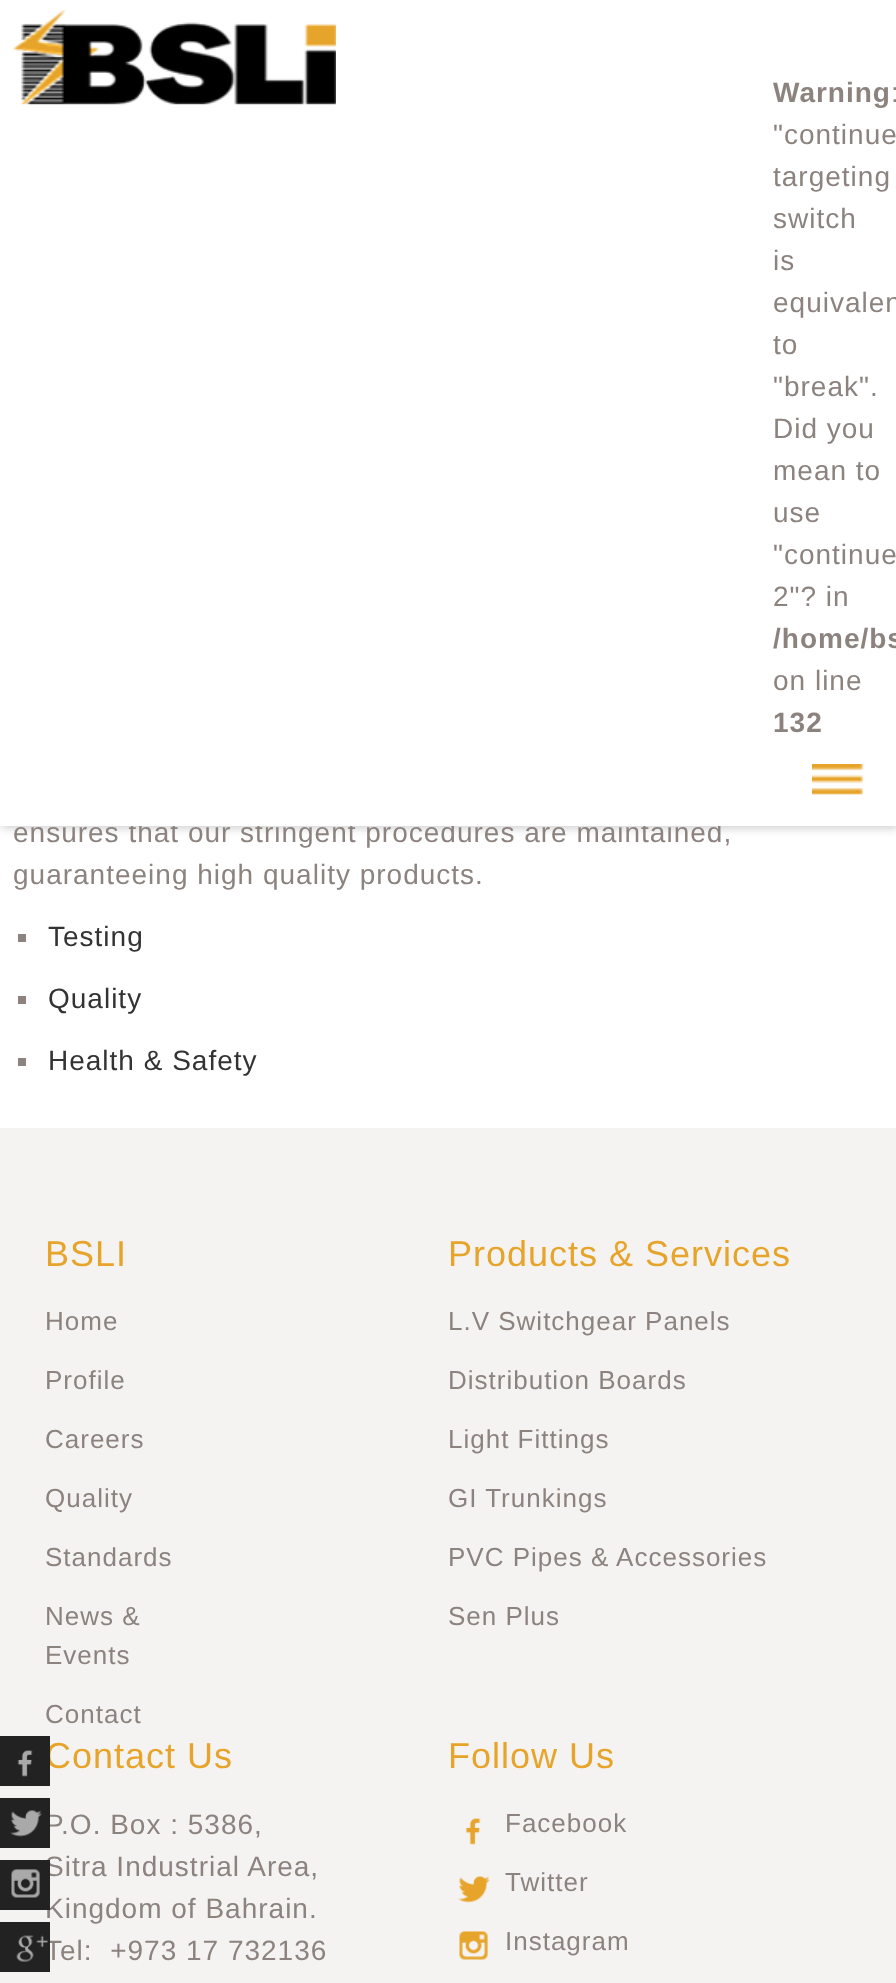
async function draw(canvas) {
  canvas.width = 896;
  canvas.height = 1983;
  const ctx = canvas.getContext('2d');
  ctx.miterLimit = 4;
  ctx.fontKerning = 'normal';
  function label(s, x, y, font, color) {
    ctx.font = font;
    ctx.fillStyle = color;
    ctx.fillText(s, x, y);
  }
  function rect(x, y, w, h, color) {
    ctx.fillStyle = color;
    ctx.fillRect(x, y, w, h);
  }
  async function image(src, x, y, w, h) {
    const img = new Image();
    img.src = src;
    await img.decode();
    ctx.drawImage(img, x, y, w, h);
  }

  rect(0, 0, 896, 1983, '#fff');
  ctx.fillStyle = '#ccc';
  ctx.filter = 'blur(5px)';
  ctx.beginPath();
  ctx.rect(2, 2, 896, 826);
  ctx.fill();
  ctx.filter = 'none';
  ctx.letterSpacing = '1px';
  label('ensures that our stringent procedures are maintained,', 13, 842, '28px Liberation Sans', '#8c837f');
  rect(0, 0, 896, 826, '#fff');
  await image('assets/img1.png', 13, 10, 323, 95);
  label('Warning', 773, 102, 'bold 28px Liberation Sans', '#8c837f');
  label(':', 891, 102, '28px Liberation Sans', '#8c837f');
  label('"continue', 773, 144, '28px Liberation Sans', '#8c837f');
  label('targeting', 773, 186, '28px Liberation Sans', '#8c837f');
  label('switch', 773, 228, '28px Liberation Sans', '#8c837f');
  label('is', 773, 270, '28px Liberation Sans', '#8c837f');
  label('equivalen', 773, 312, '28px Liberation Sans', '#8c837f');
  label('to', 773, 354, '28px Liberation Sans', '#8c837f');
  label('"break".', 773, 396, '28px Liberation Sans', '#8c837f');
  label('Did you', 773, 438, '28px Liberation Sans', '#8c837f');
  label('mean to', 773, 480, '28px Liberation Sans', '#8c837f');
  label('use', 773, 522, '28px Liberation Sans', '#8c837f');
  label('"continue', 773, 564, '28px Liberation Sans', '#8c837f');
  label('2"? in', 773, 606, '28px Liberation Sans', '#8c837f');
  label('/home/bs', 773, 648, 'bold 28px Liberation Sans', '#8c837f');
  label('on line', 773, 690, '28px Liberation Sans', '#8c837f');
  label('132', 773, 732, 'bold 28px Liberation Sans', '#8c837f');
  await image('assets/img2.png', 812, 764, 52, 31);
  rect(0, 1128, 896, 855, '#f4f3f2');
  label('Contact Us', 45, 1768, '36px Liberation Sans', '#e7a42a');
  rect(0, 1736, 50, 50, '#222');
  await image('assets/img3.png', 17, 1750, 16, 27);
  label('P.O. Box : 5386,', 45, 1834, '28px Liberation Sans', '#8c837f');
  rect(0, 1798, 50, 50, '#222');
  await image('assets/img4.png', 10, 1810, 32, 27);
  label('Sitra Industrial Area,', 45, 1876, '28px Liberation Sans', '#8c837f');
  label('Kingdom of Bahrain.', 45, 1918, '28px Liberation Sans', '#8c837f');
  rect(0, 1860, 50, 50, '#222');
  await image('assets/img5.png', 11, 1869, 29, 29);
  label('Tel:  +973 17 732136', 45, 1960, '28px Liberation Sans', '#8c837f');
  rect(0, 1922, 50, 50, '#222');
  await image('assets/img6.png', 16, 1935, 32, 27);
  label('guaranteeing high quality products.', 13, 884, '28px Liberation Sans', '#8c837f');
  rect(18, 934, 8, 8, '#8c837f');
  label('Testing', 48, 946, '28px Liberation Sans', '#333');
  rect(18, 996, 8, 8, '#8c837f');
  label('Quality', 48, 1008, '28px Liberation Sans', '#333');
  rect(18, 1058, 8, 8, '#8c837f');
  label('Health & Safety', 48, 1070, '28px Liberation Sans', '#333');
  label('BSLI', 45, 1266, '36px Liberation Sans', '#e7a42a');
  label('Home', 45, 1330, '26px Liberation Sans', '#8c837f');
  label('Profile', 45, 1389, '26px Liberation Sans', '#8c837f');
  label('Careers', 45, 1448, '26px Liberation Sans', '#8c837f');
  label('Quality', 45, 1507, '26px Liberation Sans', '#8c837f');
  label('Standards', 45, 1566, '26px Liberation Sans', '#8c837f');
  label('News &', 45, 1625, '26px Liberation Sans', '#8c837f');
  label('Events', 45, 1664, '26px Liberation Sans', '#8c837f');
  label('Contact', 45, 1723, '26px Liberation Sans', '#8c837f');
  label('Products & Services', 448, 1266, '36px Liberation Sans', '#e7a42a');
  label('L.V Switchgear Panels', 448, 1330, '26px Liberation Sans', '#8c837f');
  label('Distribution Boards', 448, 1389, '26px Liberation Sans', '#8c837f');
  label('Light Fittings', 448, 1448, '26px Liberation Sans', '#8c837f');
  label('GI Trunkings', 448, 1507, '26px Liberation Sans', '#8c837f');
  label('PVC Pipes & Accessories', 448, 1566, '26px Liberation Sans', '#8c837f');
  label('Sen Plus', 448, 1625, '26px Liberation Sans', '#8c837f');
  label('Follow Us', 448, 1768, '36px Liberation Sans', '#e7a42a');
  await image('assets/img7.png', 465, 1818, 16, 27);
  label('Facebook', 505, 1832, '26px Liberation Sans', '#8c837f');
  await image('assets/img8.png', 458, 1876, 32, 27);
  label('Twitter', 505, 1891, '26px Liberation Sans', '#8c837f');
  await image('assets/img9.png', 459, 1931, 29, 29);
  label('Instagram', 505, 1950, '26px Liberation Sans', '#8c837f');
}

draw(document.querySelector('canvas'));
